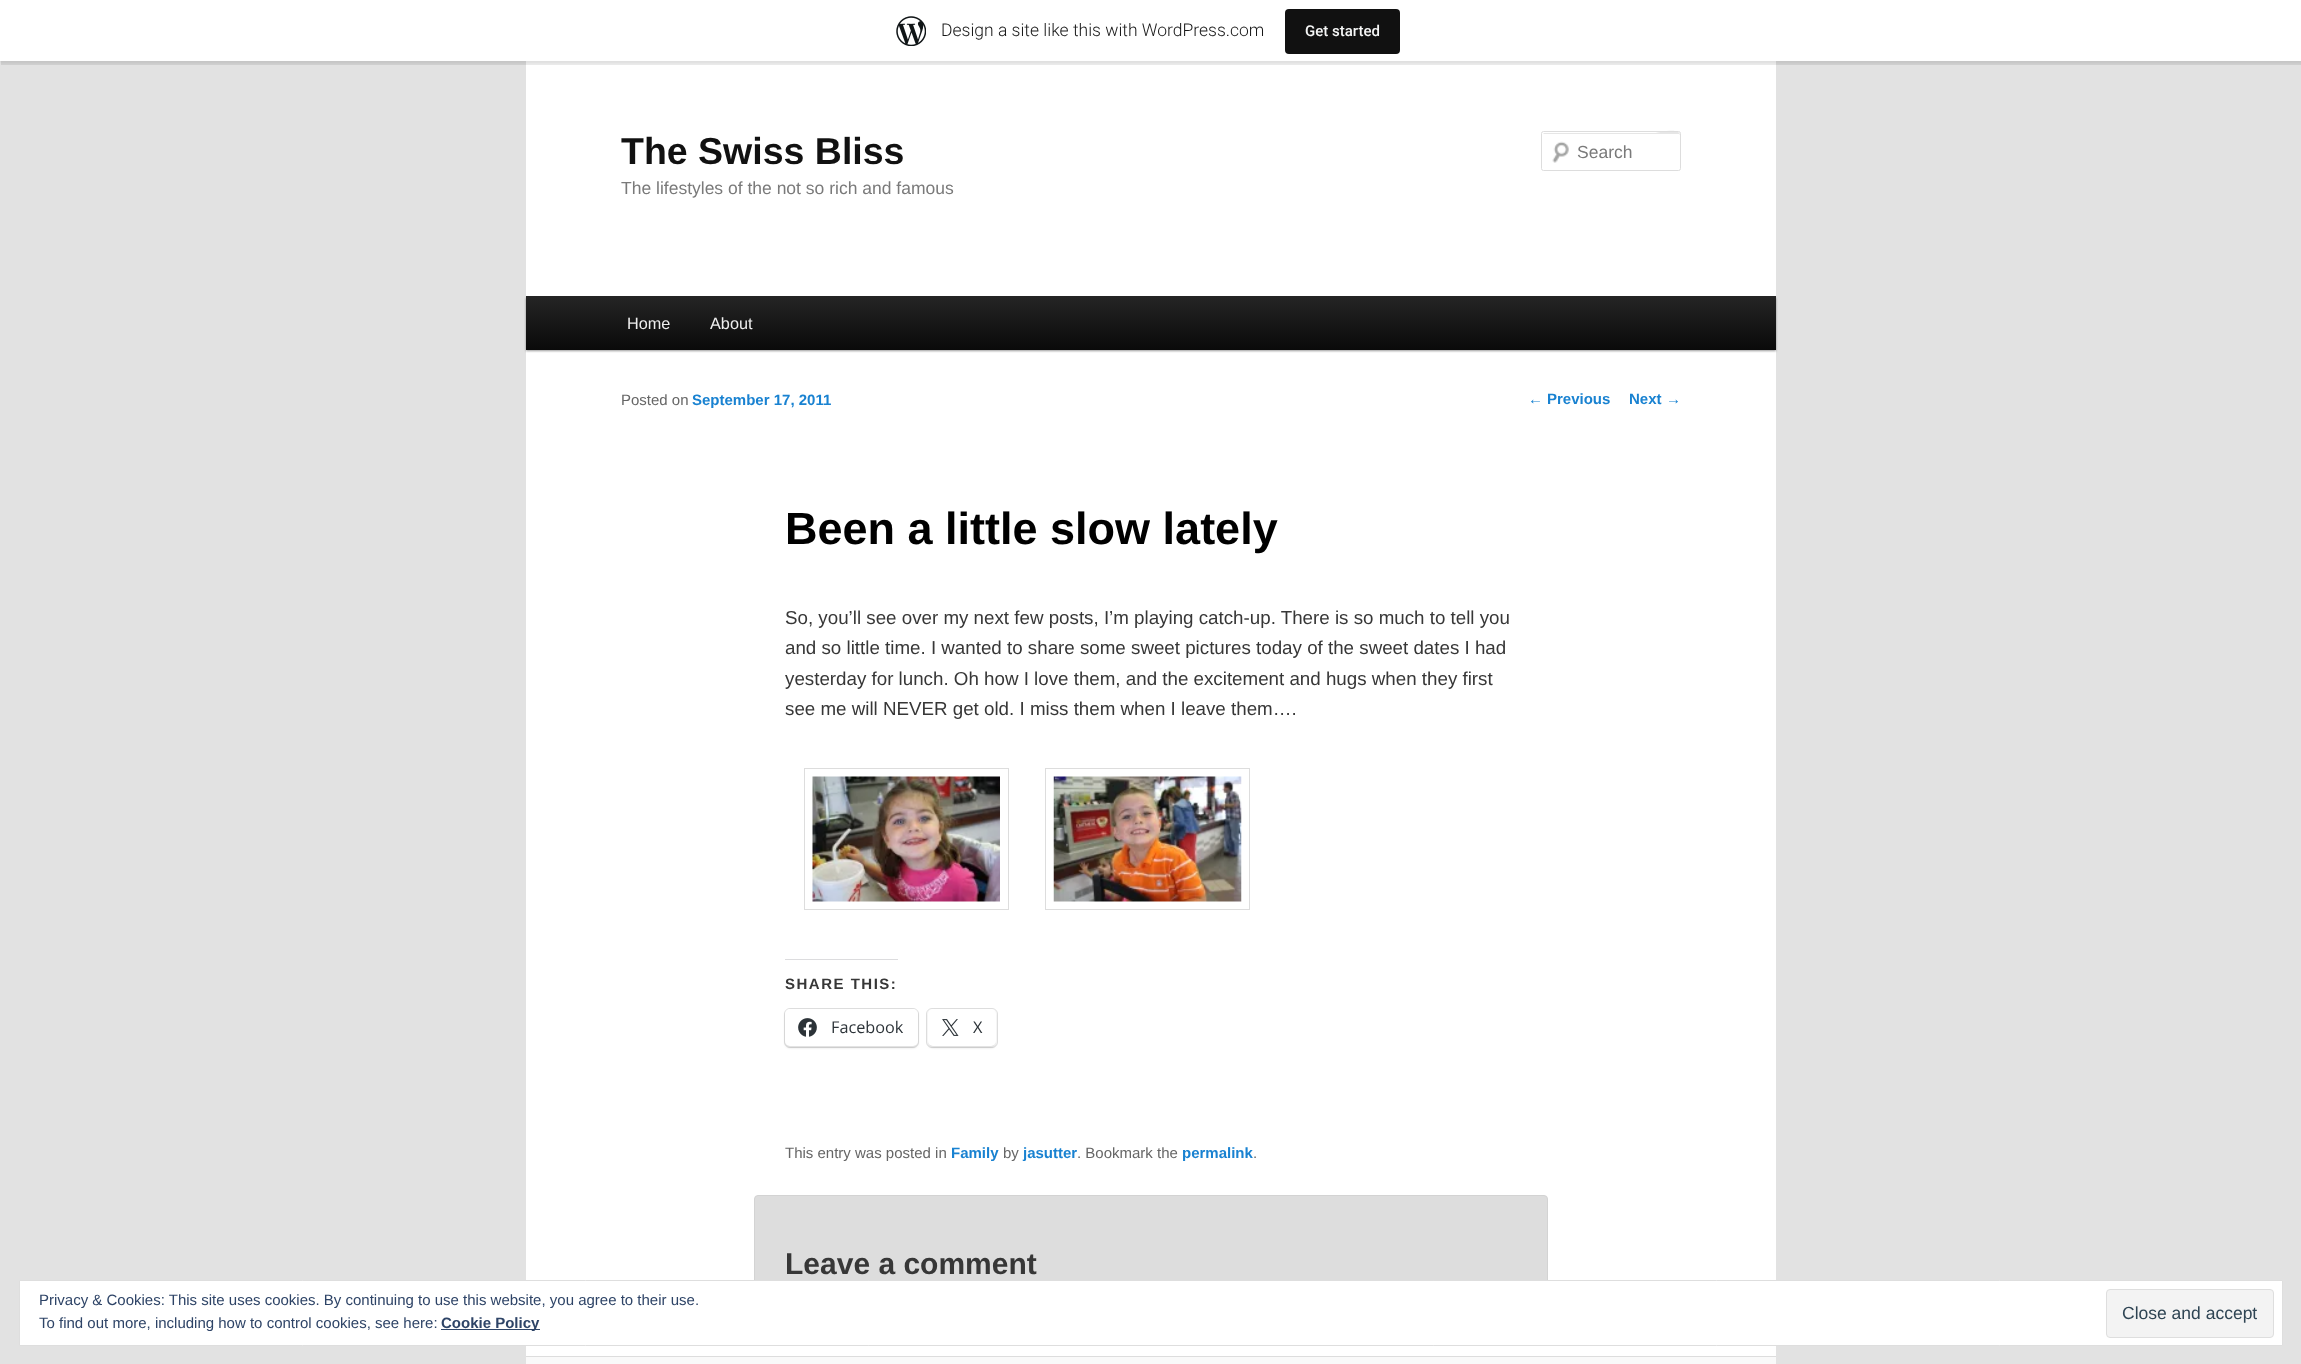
async function draw(canvas) {
  canvas.width = 2301;
  canvas.height = 1364;
  const ctx = canvas.getContext('2d');
  ctx.miterLimit = 4;
  ctx.fontKerning = 'normal';
  function label(s, x, y, font, color) {
    ctx.font = font;
    ctx.fillStyle = color;
    ctx.fillText(s, x, y);
  }
  function rect(x, y, w, h, color) {
    ctx.fillStyle = color;
    ctx.fillRect(x, y, w, h);
  }
  function roundedRect(x, y, w, h, r, color) {
    ctx.fillStyle = color;
    ctx.beginPath();
    ctx.roundRect(x, y, w, h, r);
    ctx.fill();
  }
  async function image(src, x, y, w, h) {
    const img = new Image();
    img.src = src;
    await img.decode();
    ctx.drawImage(img, x, y, w, h);
  }
  let gradient, path;

  rect(0, 0, 2301, 1364, '#e2e2e2');
  rect(526, 61, 1250, 1295, '#fff');
  ctx.fillStyle = '#0000000d';
  ctx.filter = 'blur(1px)';
  ctx.beginPath();
  ctx.rect(0, 1, 2301, 62);
  ctx.fill();
  ctx.filter = 'none';
  ctx.fillStyle = '#00000014';
  path = new Path2D('M1 61V65H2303V4H2301V61Z');
  ctx.fill(path);
  rect(0, 0, 2301, 61, '#fff');
  await image('assets/img1.png', 896, 16, 30, 30);
  label('Design a site like this with WordPress.com', 941, 36, '300 17.5px Roboto', '#171717');
  roundedRect(1285, 9, 115, 45, 4, '#111');
  label('Get started', 1305, 36, '500 15px Roboto', '#f6f7f7');
  label('The Swiss Bliss', 621, 164, 'bold 37.5px Liberation Sans', '#111');
  label('The lifestyles of the not so rich and famous', 621, 194, '17.5px Liberation Sans', '#7a7a7a');
  await image('assets/img2.png', 1552, 141, 17, 22);
  ctx.fillStyle = '#e6e6e6';
  path = new Path2D('M1544 134H1679L1680 135C1680 127 1657 133 1656 133H1544L1543 134Z');
  ctx.fill(path);
  ctx.beginPath();
  ctx.roundRect(1541.5, 131.5, 139, 39, 2);
  ctx.strokeStyle = '#ddd';
  ctx.stroke();
  label('Search', 1577, 158, '17.5px Liberation Sans', '#7a7a7a');
  ctx.fillStyle = '#00000066';
  ctx.filter = 'blur(1px)';
  ctx.beginPath();
  ctx.rect(526, 298, 1250, 53);
  ctx.fill();
  ctx.filter = 'none';
  gradient = ctx.createLinearGradient(1151, 296, 1151, 350);
  gradient.addColorStop(0, '#252525');
  gradient.addColorStop(1, '#0a0a0a');
  ctx.fillStyle = gradient;
  ctx.fillRect(526, 296, 1250, 54);
  label('Home', 627, 329, '16.25px Liberation Sans', '#eee');
  label('About', 710, 329, '16.25px Liberation Sans', '#eee');
  label('Posted on', 621, 405, '15px Liberation Sans', '#666');
  label('September 17, 2011', 692, 405, 'bold 15px Liberation Sans', '#1982d1');
  label('Been a little slow lately', 785, 544, 'bold 45px Liberation Sans', '#000');
  label('So, you’ll see over my next few posts, I’m playing catch-up. There is so much to tell you', 785, 624, '18.75px Liberation Sans', '#373737');
  label('and so little time. I wanted to share some sweet pictures today of the sweet dates I had', 785, 654, '18.75px Liberation Sans', '#373737');
  label('yesterday for lunch. Oh how I love them, and the excitement and hugs when they first', 785, 685, '18.75px Liberation Sans', '#373737');
  label('see me will NEVER get old. I miss them when I leave them….', 785, 715, '18.75px Liberation Sans', '#373737');
  ctx.strokeRect(804.5, 768.5, 204, 141);
  await image('assets/img3.png', 812, 776, 188, 126);
  ctx.strokeRect(1045.5, 768.5, 204, 141);
  await image('assets/img4.png', 1053, 776, 189, 126);
  rect(785, 959, 113, 1, '#dcdcde');
  ctx.letterSpacing = '1.5px';
  label('SHARE THIS:', 785, 989, 'bold 15px Liberation Sans', '#373737');
  ctx.beginPath();
  ctx.roundRect(784.5, 1008.5, 134, 39, 5.5);
  ctx.strokeStyle = '#e0e0e0';
  ctx.stroke();
  ctx.fillStyle = '#0000001f';
  ctx.filter = 'blur(1px)';
  ctx.beginPath();
  ctx.roundRect(785, 1010, 133, 38, 5);
  ctx.fill();
  ctx.filter = 'none';
  roundedRect(785, 1009, 133, 37, 5, '#fff');
  await image('assets/img5.png', 798, 1018, 19, 19);
  ctx.letterSpacing = '0px';
  label('Facebook', 831, 1033, '16.25px Open Sans', '#2c3338');
  ctx.beginPath();
  ctx.roundRect(926.5, 1008.5, 71, 39, 5.5);
  ctx.stroke();
  ctx.fillStyle = '#0000001f';
  ctx.filter = 'blur(1px)';
  ctx.beginPath();
  ctx.roundRect(928, 1010, 68, 38, 5);
  ctx.fill();
  ctx.filter = 'none';
  roundedRect(928, 1009, 68, 37, 5, '#fff');
  await image('assets/img6.png', 942, 1019, 17, 17);
  label('X', 973, 1033, '16.25px Open Sans', '#2c3338');
  label('This entry was posted in', 785, 1158, '15px Liberation Sans', '#666');
  label('Family', 951, 1158, 'bold 15px Liberation Sans', '#1982d1');
  label('by', 1003, 1158, '15px Liberation Sans', '#666');
  label('jasutter', 1023, 1158, 'bold 15px Liberation Sans', '#1982d1');
  label('. Bookmark the', 1077, 1158, '15px Liberation Sans', '#666');
  label('permalink', 1182, 1158, 'bold 15px Liberation Sans', '#1982d1');
  label('.', 1253, 1158, '15px Liberation Sans', '#666');
  label('←', 1528, 404, '15px Liberation Sans', '#1982d1');
  label('Previous', 1547, 404, 'bold 15px Liberation Sans', '#1982d1');
  label('Next', 1629, 404, 'bold 15px Liberation Sans', '#1982d1');
  label('→', 1666, 404, '15px Liberation Sans', '#1982d1');
  ctx.fillStyle = '#ddd';
  ctx.beginPath();
  ctx.roundRect(754.5, 1195.5, 793, 142, 3.5);
  ctx.fill();
  ctx.strokeStyle = '#d3d3d3';
  ctx.stroke();
  label('Leave a comment', 785, 1274, 'bold 30px Liberation Sans', '#373737');
  rect(526, 1357, 1250, 7, '#f9f9f9');
  rect(526, 1356, 1250, 1, '#ddd');
  ctx.fillStyle = '#fff';
  ctx.beginPath();
  ctx.rect(19.5, 1280.5, 2263, 65);
  ctx.fill();
  ctx.strokeStyle = '#dedede';
  ctx.stroke();
  label('Privacy & Cookies: This site uses cookies. By continuing to use this website, you agree to their use.', 39, 1305, '15px Liberation Sans', '#2e4467');
  ctx.fillStyle = '#f3f3f3';
  ctx.beginPath();
  ctx.roundRect(2106.5, 1289.5, 167, 48, 3.5);
  ctx.fill();
  ctx.stroke();
  label('Close and accept', 2122, 1319, '17.5px Liberation Sans', '#2e4453');
  label('To find out more, including how to control cookies, see here:', 39, 1328, '15px Liberation Sans', '#2e4467');
  rect(441, 1329, 99, 1, '#2e4467');
  label('Cookie Policy', 441, 1328, 'bold 15px Liberation Sans', '#2e4467');
}

draw(document.querySelector('canvas'));
